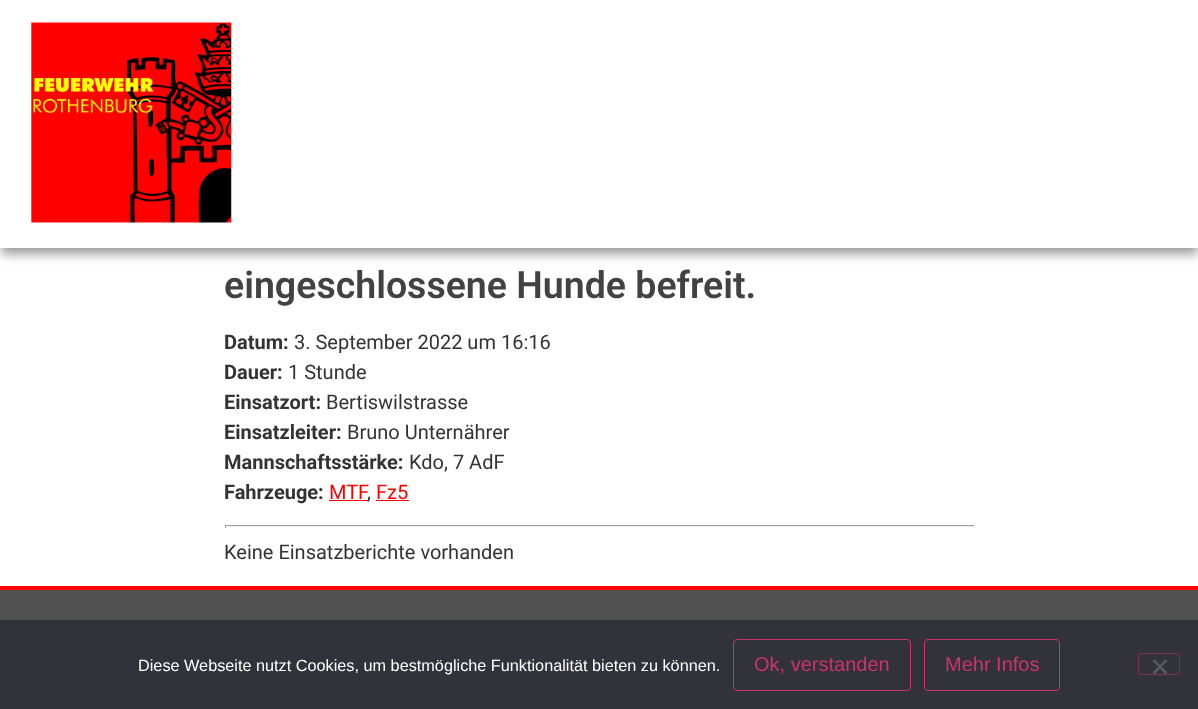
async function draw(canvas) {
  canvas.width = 1198;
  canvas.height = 709;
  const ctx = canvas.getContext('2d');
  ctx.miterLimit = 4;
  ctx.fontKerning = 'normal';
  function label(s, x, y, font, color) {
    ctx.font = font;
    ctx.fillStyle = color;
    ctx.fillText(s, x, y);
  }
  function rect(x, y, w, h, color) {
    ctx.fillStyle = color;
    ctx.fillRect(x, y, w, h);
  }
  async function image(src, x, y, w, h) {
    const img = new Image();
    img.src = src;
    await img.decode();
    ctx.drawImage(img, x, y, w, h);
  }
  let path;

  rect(0, 0, 1198, 709, '#fff');
  ctx.fillStyle = '#33333380';
  ctx.filter = 'blur(5.5px)';
  ctx.beginPath();
  ctx.rect(1, 9, 1197, 245);
  ctx.fill();
  ctx.filter = 'none';
  rect(0, 0, 1198, 248, '#fff');
  await image('assets/img1.png', 31, 22, 201, 201);
  label('eingeschlossene Hunde befreit.', 224, 298, '600 37.5px Roboto', '#424242');
  label('Datum:', 224, 349, 'bold 20px Roboto', '#333');
  label('3. September 2022 um 16:16', 294, 349, '20px Roboto', '#333');
  label('Dauer:', 224, 379, 'bold 20px Roboto', '#333');
  label('1 Stunde', 288, 379, '20px Roboto', '#333');
  label('Einsatzort:', 224, 409, 'bold 20px Roboto', '#333');
  label('Bertiswilstrasse', 326, 409, '20px Roboto', '#333');
  label('Einsatzleiter:', 224, 439, 'bold 20px Roboto', '#333');
  label('Bruno Unternährer', 347, 439, '20px Roboto', '#333');
  label('Mannschaftsstärke:', 224, 469, 'bold 20px Roboto', '#333');
  label('Kdo, 7 AdF', 409, 469, '20px Roboto', '#333');
  label('Fahrzeuge:', 224, 499, 'bold 20px Roboto', '#333');
  label('MTF', 329, 499, '20px Roboto', '#f00');
  rect(329, 500, 39, 1, '#f00');
  label('Fz5', 376, 499, '20px Roboto', '#f00');
  rect(376, 500, 33, 1, '#f00');
  label(',', 367, 499, '20px Roboto', '#333');
  rect(225, 525, 750, 1, '#9f9f9f');
  rect(974, 525, 1, 3, '#eee');
  rect(225, 526, 750, 1, '#eee');
  rect(225, 525, 1, 3, '#9f9f9f');
  label('Keine Einsatzberichte vorhanden', 224, 559, '20px Roboto', '#333');
  rect(0, 590, 1198, 30, '#515151');
  rect(0, 586, 1198, 4, '#f00');
  rect(0, 620, 1198, 89, '#32323a');
  label('Diese Webseite nutzt Cookies, um bestmögliche Funktionalität bieten zu können.', 138, 671, '16.25px Liberation Sans', '#fff');
  ctx.beginPath();
  ctx.roundRect(733.5, 639.5, 177, 51, 3.5);
  ctx.strokeStyle = '#c36';
  ctx.stroke();
  label('Ok, verstanden', 754, 671, '20px Liberation Sans', '#c36');
  ctx.beginPath();
  ctx.roundRect(924.5, 639.5, 135, 51, 3.5);
  ctx.stroke();
  label('Mehr Infos', 945, 671, '20px Liberation Sans', '#c36');
  ctx.beginPath();
  ctx.roundRect(1138.5, 653.5, 41, 21, 3.5);
  ctx.strokeStyle = '#7f3350';
  ctx.stroke();
  ctx.fillStyle = '#59595d';
  path = new Path2D('M1165.5 659.5L1167.5 661L1154.5 674.5L1152.5 672.5Z');
  ctx.fill(path);
  path = new Path2D('M1152.5 661L1154.5 659.5L1167.5 672.5L1165.5 674.5Z');
  ctx.fill(path);
}

draw(document.querySelector('canvas'));
